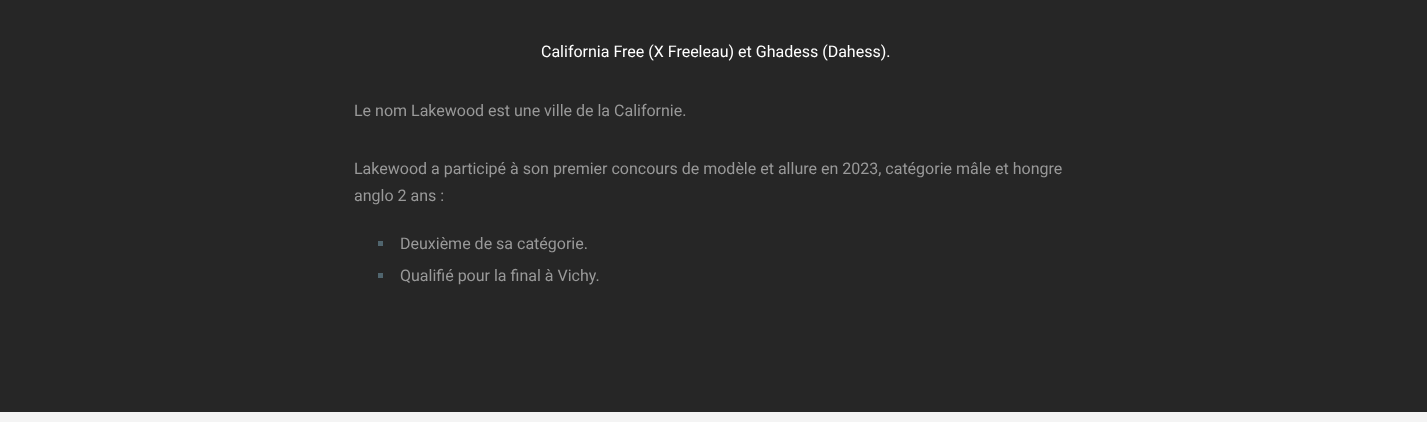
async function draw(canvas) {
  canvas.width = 1427;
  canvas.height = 422;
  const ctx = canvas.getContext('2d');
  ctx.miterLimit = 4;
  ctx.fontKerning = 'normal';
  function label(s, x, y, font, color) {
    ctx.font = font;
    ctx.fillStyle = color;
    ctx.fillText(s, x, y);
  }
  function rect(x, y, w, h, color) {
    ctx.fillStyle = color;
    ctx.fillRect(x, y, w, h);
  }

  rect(0, 0, 1427, 422, '#262626');
  label('California Free (X Freeleau) et Ghadess (Dahess).', 541, 57, '16px Roboto', '#fff');
  label('Le nom Lakewood est une ville de la Californie.', 354, 116, '16px Roboto', '#999');
  label('Lakewood a participé à son premier concours de modèle et allure en 2023, catégorie mâle et hongre', 354, 174, '16px Roboto', '#999');
  label('anglo 2 ans :', 354, 201, '16px Roboto', '#999');
  rect(378, 241, 5, 5, '#50656e');
  label('Deuxième de sa catégorie.', 400, 249, '16px Roboto', '#999');
  rect(378, 273, 5, 5, '#50656e');
  label('Qualifié pour la final à Vichy.', 400, 281, '16px Roboto', '#999');
  rect(0, 412, 1427, 10, '#f4f4f4');
}

draw(document.querySelector('canvas'));
